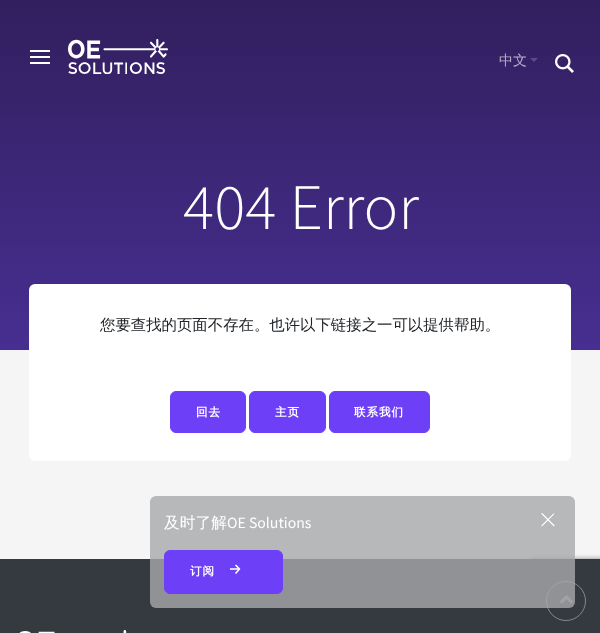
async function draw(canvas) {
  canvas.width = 600;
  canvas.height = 633;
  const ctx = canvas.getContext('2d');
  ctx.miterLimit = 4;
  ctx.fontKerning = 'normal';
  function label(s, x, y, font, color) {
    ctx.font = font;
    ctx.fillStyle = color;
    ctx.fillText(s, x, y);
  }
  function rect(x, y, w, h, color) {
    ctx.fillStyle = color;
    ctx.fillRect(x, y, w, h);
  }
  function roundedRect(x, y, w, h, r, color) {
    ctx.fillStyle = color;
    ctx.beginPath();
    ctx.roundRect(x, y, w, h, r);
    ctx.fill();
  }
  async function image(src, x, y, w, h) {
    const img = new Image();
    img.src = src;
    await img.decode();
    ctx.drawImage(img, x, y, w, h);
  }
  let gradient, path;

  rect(0, 0, 600, 633, '#f5f5f5');
  gradient = ctx.createLinearGradient(300, 0, 300, 350);
  gradient.addColorStop(0, '#311f5e');
  gradient.addColorStop(1, '#472f91');
  ctx.fillStyle = gradient;
  ctx.fillRect(0, 0, 600, 350);
  rect(30, 50, 20, 2, '#fff');
  rect(30, 56, 20, 2, '#fff');
  rect(30, 62, 20, 2, '#fff');
  await image('assets/img1.png', 68, 39, 100, 35);
  label('中文', 499, 65, '500 14px WenQuanYi Zen Hei', '#b8b2ca');
  ctx.fillStyle = '#5d4d85';
  path = new Path2D('M530 58H538L534 62Z');
  ctx.fill(path);
  await image('assets/img2.png', 555, 54, 19, 19);
  label('404 Error', 183, 229, '300 65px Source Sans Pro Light', '#fff');
  roundedRect(29, 284, 542, 177, 6, '#fff');
  label('您要查找的页面不存在。也许以下链接之一可以提供帮助。', 100, 330, '500 15.4px WenQuanYi Zen Hei', '#212529');
  ctx.fillStyle = '#6d40f8';
  ctx.beginPath();
  ctx.roundRect(170.5, 391.5, 75, 41, 5.5);
  ctx.fill();
  ctx.strokeStyle = '#6d40f8';
  ctx.stroke();
  ctx.letterSpacing = '1px';
  label('回去', 196, 416, 'bold 11.5px WenQuanYi Zen Hei', '#fff');
  ctx.fillStyle = '#6d40f8';
  ctx.beginPath();
  ctx.roundRect(249.5, 391.5, 76, 41, 5.5);
  ctx.fill();
  ctx.stroke();
  label('主页', 275, 416, 'bold 11.5px WenQuanYi Zen Hei', '#fff');
  ctx.fillStyle = '#6d40f8';
  ctx.beginPath();
  ctx.roundRect(329.5, 391.5, 100, 41, 5.5);
  ctx.fill();
  ctx.stroke();
  label('联系我们', 354, 416, 'bold 11.5px WenQuanYi Zen Hei', '#fff');
  ctx.fillStyle = '#808080';
  ctx.filter = 'blur(2.5px)';
  ctx.beginPath();
  ctx.roundRect(530, 559, 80, 60, 2);
  ctx.fill();
  ctx.filter = 'none';
  rect(0, 559, 600, 74, '#343a40');
  ctx.beginPath();
  ctx.arc(566, 601, 19.5, 0, 2 * Math.PI);
  ctx.strokeStyle = '#85898c';
  ctx.stroke();
  await image('assets/img4.png', 560, 595, 13, 9);
  roundedRect(150, 496, 425, 112, 6, '#a7a9abcc');
  ctx.letterSpacing = '0px';
  label('及时了解', 164, 528, '500 15.75px WenQuanYi Zen Hei', '#fff');
  label('OE Solutions', 227, 528, '15.75px Source Sans Pro', '#fff');
  ctx.fillStyle = '#6d40f8';
  ctx.beginPath();
  ctx.roundRect(164.5, 550.5, 118, 43, 5.5);
  ctx.fill();
  ctx.strokeStyle = '#6d40f8';
  ctx.stroke();
  ctx.letterSpacing = '1px';
  label('订阅', 190, 575, 'bold 11.5px WenQuanYi Zen Hei', '#fff');
  path = new Path2D('M235.5 565L239.5 569L235.5 573.5M230 569H239.5');
  ctx.strokeStyle = '#fff';
  ctx.lineWidth = 1.6;
  ctx.lineJoin = 'round';
  ctx.stroke(path);
  await image('assets/img3.png', 541, 513, 14, 14);
  await image('assets/img5.png', 19, 630, 108, 3);
}

draw(document.querySelector('canvas'));
